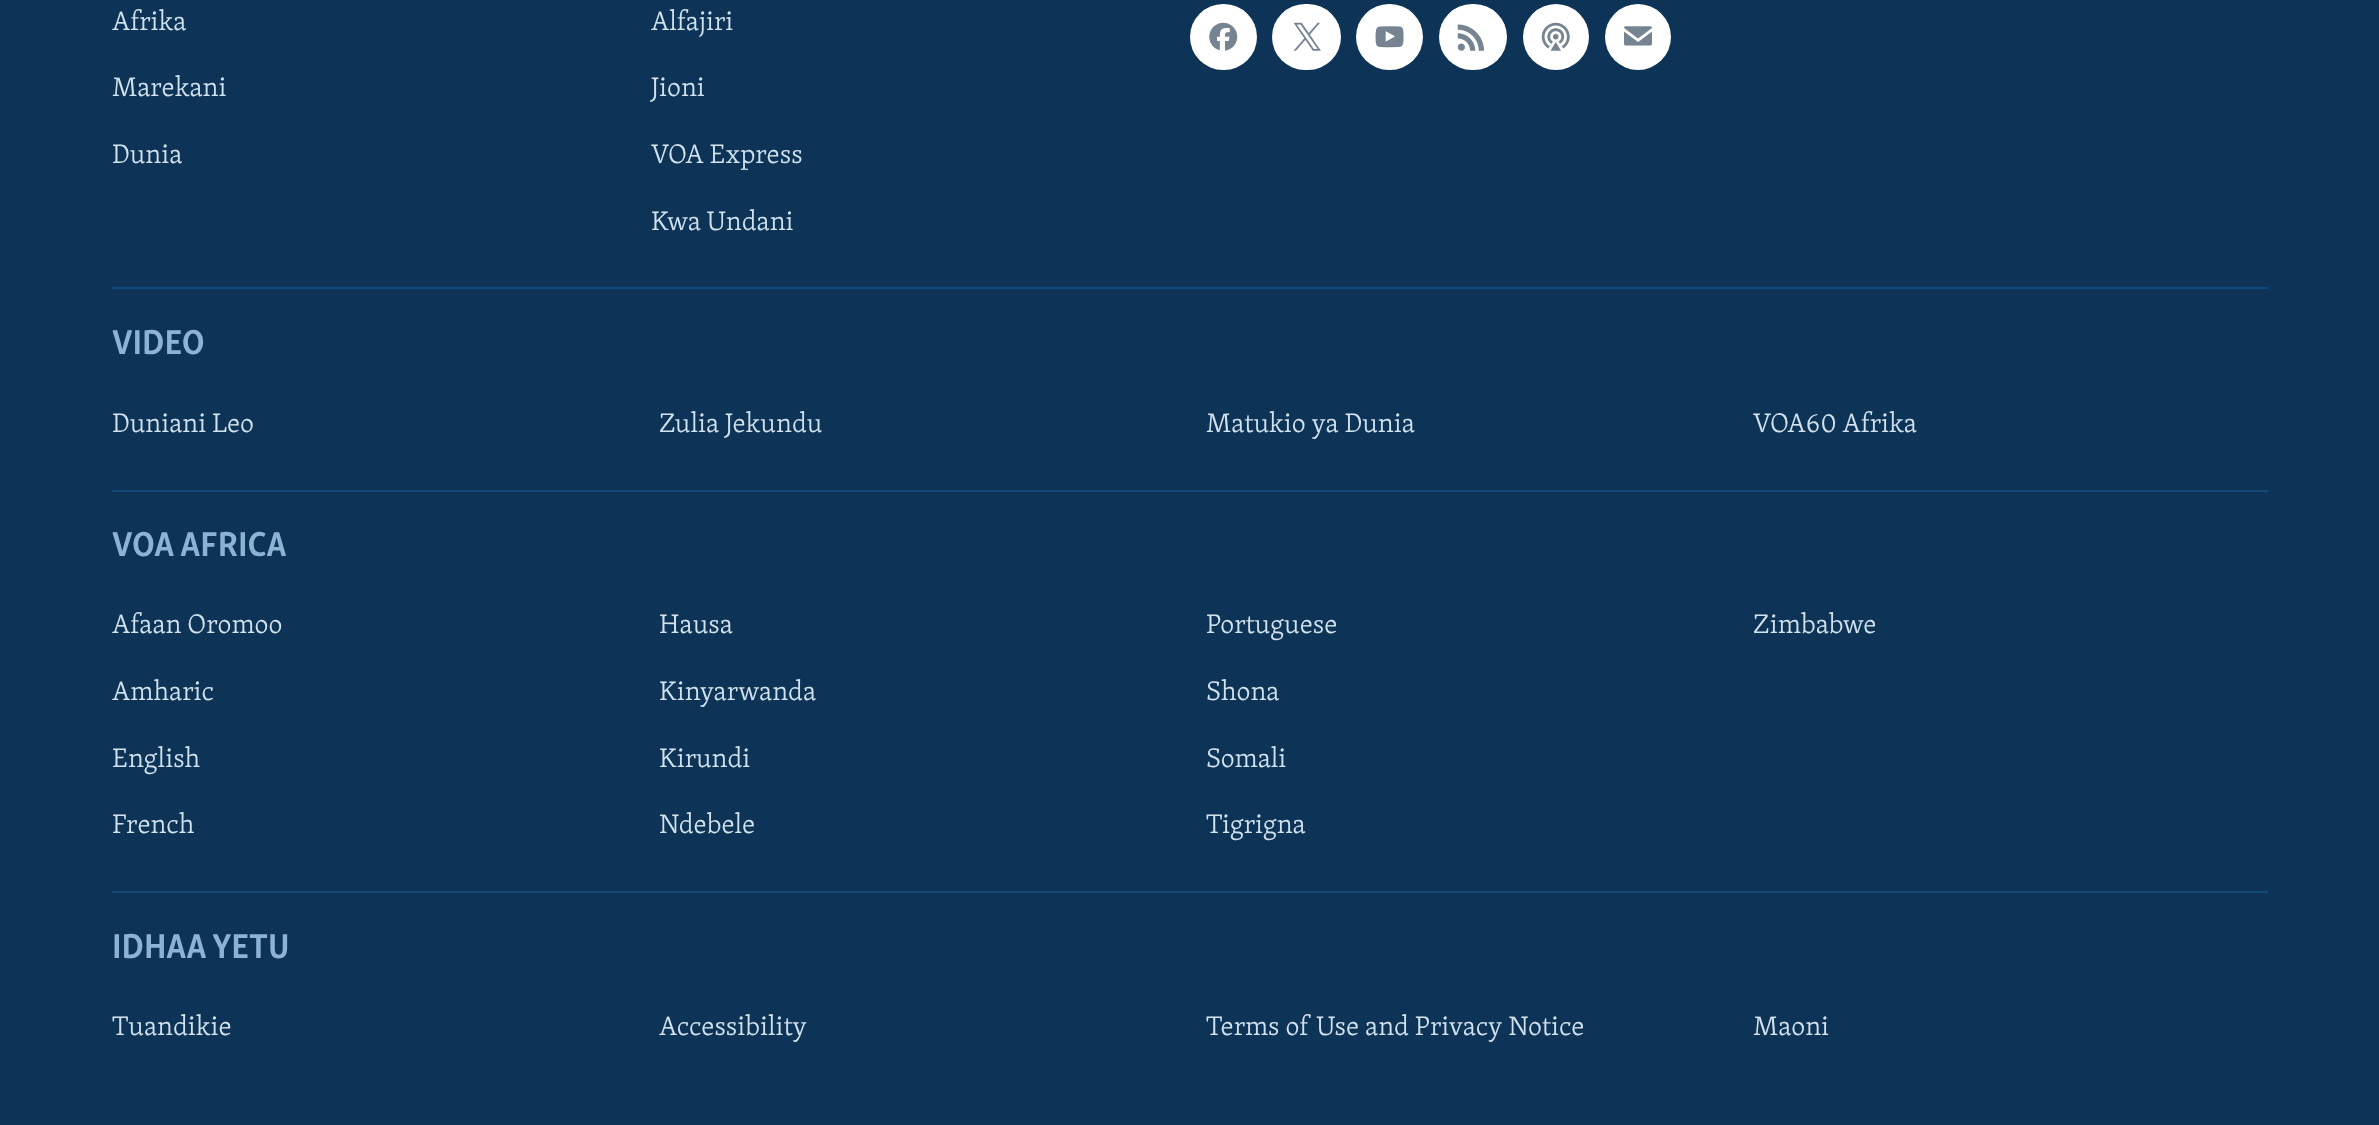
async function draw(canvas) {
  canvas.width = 2379;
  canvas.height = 1125;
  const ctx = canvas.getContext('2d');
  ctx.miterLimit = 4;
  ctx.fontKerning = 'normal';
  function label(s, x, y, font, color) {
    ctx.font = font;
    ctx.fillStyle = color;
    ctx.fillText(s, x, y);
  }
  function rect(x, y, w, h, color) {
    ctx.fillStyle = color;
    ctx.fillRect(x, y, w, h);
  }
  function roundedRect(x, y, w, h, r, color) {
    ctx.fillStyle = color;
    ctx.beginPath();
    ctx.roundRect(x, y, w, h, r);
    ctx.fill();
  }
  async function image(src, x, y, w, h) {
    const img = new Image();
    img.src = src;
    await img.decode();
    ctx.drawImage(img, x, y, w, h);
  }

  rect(0, 0, 2379, 1125, '#0d3456');
  label('Afrika', 112, 30, '300 27.5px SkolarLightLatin', '#d1e1ee');
  label('Marekani', 112, 96, '300 27.5px SkolarLightLatin', '#d1e1ee');
  label('Dunia', 112, 163, '300 27.5px SkolarLightLatin', '#d1e1ee');
  label('Alfajiri', 651, 30, '300 27.5px SkolarLightLatin', '#d1e1ee');
  label('Jioni', 651, 96, '300 27.5px SkolarLightLatin', '#d1e1ee');
  label('VOA Express', 651, 163, '300 27.5px SkolarLightLatin', '#d1e1ee');
  label('Kwa Undani', 651, 230, '300 27.5px SkolarLightLatin', '#d1e1ee');
  roundedRect(1190, 4, 67, 66, 33, '#fff');
  await image('assets/img1.png', 1209, 22, 29, 29);
  roundedRect(1272, 4, 69, 66, 33, '#fff');
  await image('assets/img2.png', 1293, 22, 28, 29);
  roundedRect(1356, 4, 67, 66, 33, '#fff');
  await image('assets/img3.png', 1375, 26, 29, 22);
  roundedRect(1439, 4, 68, 66, 33, '#fff');
  await image('assets/img4.png', 1457, 24, 27, 27);
  ctx.beginPath();
  ctx.arc(1556, 37, 33, 0, 2 * Math.PI);
  ctx.fill();
  await image('assets/img5.png', 1541, 22, 29, 29);
  ctx.beginPath();
  ctx.arc(1638, 37, 33, 0, 2 * Math.PI);
  ctx.fill();
  await image('assets/img6.png', 1624, 26, 28, 20);
  rect(112, 287, 2156, 2, '#134976');
  label('VIDEO', 112, 354, 'bold 35.5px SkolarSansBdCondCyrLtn', '#8db3d4');
  label('Duniani Leo', 112, 432, '300 27.5px SkolarLightLatin', '#d1e1ee');
  label('Zulia Jekundu', 659, 432, '300 27.5px SkolarLightLatin', '#d1e1ee');
  label('Matukio ya Dunia', 1206, 432, '300 27.5px SkolarLightLatin', '#d1e1ee');
  label('VOA60 Afrika', 1753, 432, '300 27.5px SkolarLightLatin', '#d1e1ee');
  rect(112, 490, 2156, 2, '#134976');
  label('VOA AFRICA', 112, 556, 'bold 35.5px SkolarSansBdCondCyrLtn', '#8db3d4');
  label('Afaan Oromoo', 112, 633, '300 27.5px SkolarLightLatin', '#d1e1ee');
  label('Hausa', 659, 633, '300 27.5px SkolarLightLatin', '#d1e1ee');
  label('Portuguese', 1206, 633, '300 27.5px SkolarLightLatin', '#d1e1ee');
  label('Zimbabwe', 1753, 633, '300 27.5px SkolarLightLatin', '#d1e1ee');
  label('Amharic', 112, 700, '300 27.5px SkolarLightLatin', '#d1e1ee');
  label('Kinyarwanda', 659, 700, '300 27.5px SkolarLightLatin', '#d1e1ee');
  label('Shona', 1206, 700, '300 27.5px SkolarLightLatin', '#d1e1ee');
  label('English', 112, 767, '300 27.5px SkolarLightLatin', '#d1e1ee');
  label('Kirundi', 659, 767, '300 27.5px SkolarLightLatin', '#d1e1ee');
  label('Somali', 1206, 767, '300 27.5px SkolarLightLatin', '#d1e1ee');
  label('French', 112, 833, '300 27.5px SkolarLightLatin', '#d1e1ee');
  label('Ndebele', 659, 833, '300 27.5px SkolarLightLatin', '#d1e1ee');
  label('Tigrigna', 1206, 833, '300 27.5px SkolarLightLatin', '#d1e1ee');
  rect(112, 891, 2156, 2, '#134976');
  label('IDHAA YETU', 112, 958, 'bold 35.5px SkolarSansBdCondCyrLtn', '#8db3d4');
  label('Tuandikie', 112, 1035, '300 27.5px SkolarLightLatin', '#d1e1ee');
  label('Accessibility', 659, 1035, '300 27.5px SkolarLightLatin', '#d1e1ee');
  label('Terms of Use and Privacy Notice', 1206, 1035, '300 27.5px SkolarLightLatin', '#d1e1ee');
  label('Maoni', 1753, 1035, '300 27.5px SkolarLightLatin', '#d1e1ee');
}

draw(document.querySelector('canvas'));
